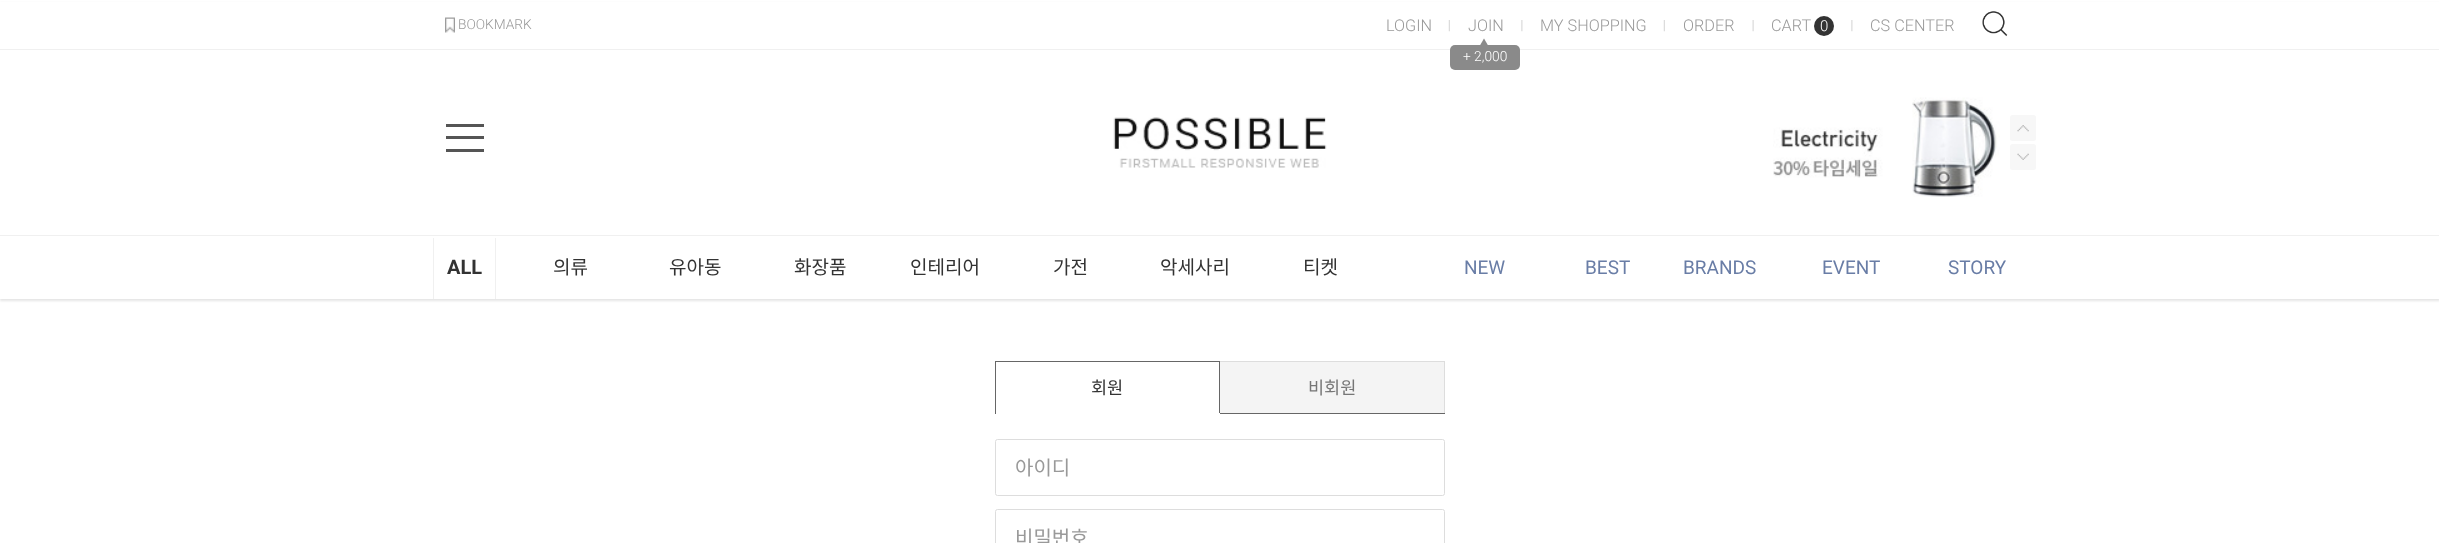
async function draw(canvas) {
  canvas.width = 2439;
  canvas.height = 543;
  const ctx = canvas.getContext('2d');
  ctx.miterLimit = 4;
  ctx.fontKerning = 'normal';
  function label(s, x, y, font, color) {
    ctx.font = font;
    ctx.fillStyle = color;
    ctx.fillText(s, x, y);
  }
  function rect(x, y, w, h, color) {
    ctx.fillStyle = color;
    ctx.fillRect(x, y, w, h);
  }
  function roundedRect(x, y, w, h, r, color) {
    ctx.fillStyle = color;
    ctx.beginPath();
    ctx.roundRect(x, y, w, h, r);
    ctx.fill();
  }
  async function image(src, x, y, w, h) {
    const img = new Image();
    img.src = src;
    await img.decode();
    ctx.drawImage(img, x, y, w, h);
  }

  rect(0, 0, 2439, 543, '#fff');
  ctx.fillStyle = '#0000001a';
  ctx.filter = 'blur(1px)';
  ctx.beginPath();
  ctx.rect(0, 3, 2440, 298);
  ctx.fill();
  ctx.filter = 'none';
  rect(0, 2, 2439, 297, '#fff');
  await image('assets/img1.png', 1982, 11, 26, 26);
  rect(446, 124, 38, 3, '#555');
  rect(446, 136, 38, 3, '#555');
  rect(446, 149, 38, 3, '#555');
  await image('assets/img2.png', 1113, 117, 214, 51);
  await image('assets/img3.png', 1773, 97, 227, 100);
  roundedRect(2010, 115, 26, 26, 2.5, '#f7f7f7');
  await image('assets/img4.png', 2017, 125, 12, 7);
  roundedRect(2010, 144, 26, 26, 2.5, '#f7f7f7');
  await image('assets/img5.png', 2017, 153, 12, 7);
  rect(0, 49, 2439, 1, '#f0f0f0');
  await image('assets/img6.png', 445, 17, 10, 16);
  label('BOOKMARK', 458, 29, '300 13.75px Roboto', '#999');
  label('LOGIN', 1386, 31, '300 16.25px Roboto', '#999');
  await image('assets/img7.png', 1448, 20, 2, 12);
  label('JOIN', 1468, 31, '300 16.25px Roboto', '#999');
  roundedRect(1450, 45, 70, 25, 5, '#8a8a8a');
  label('▲', 1480, 45, '300 8px Noto Sans KR', '#8a8a8a');
  label('+ 2,000', 1463, 61, '300 13.75px Roboto', '#fff');
  await image('assets/img8.png', 1521, 20, 2, 12);
  label('MY SHOPPING', 1540, 31, '300 16.25px Roboto', '#999');
  await image('assets/img7.png', 1663, 20, 2, 12);
  label('ORDER', 1683, 31, '300 16.25px Roboto', '#999');
  await image('assets/img9.png', 1752, 20, 2, 12);
  label('CART', 1771, 31, '300 16.25px Roboto', '#999');
  ctx.fillStyle = '#333';
  ctx.beginPath();
  ctx.arc(1824, 26, 10, 0, 2 * Math.PI);
  ctx.fill();
  label('0', 1820, 31, '300 15px Roboto', '#fff');
  await image('assets/img8.png', 1851, 20, 2, 12);
  label('CS CENTER', 1870, 31, '300 16.25px Roboto', '#999');
  rect(0, 235, 2439, 1, '#f0f0f0');
  rect(495, 238, 1, 61, '#f0f0f0');
  rect(433, 238, 1, 61, '#f0f0f0');
  label('ALL', 447, 274, 'bold 20px Roboto', '#333');
  label('의류', 553, 274, '19px Noto Sans KR', '#333');
  label('유아동', 669, 274, '19px Noto Sans KR', '#333');
  label('화장품', 794, 274, '19px Noto Sans KR', '#333');
  label('인테리어', 910, 274, '19px Noto Sans KR', '#333');
  label('가전', 1053, 274, '19px Noto Sans KR', '#333');
  label('악세사리', 1160, 274, '19px Noto Sans KR', '#333');
  label('티켓', 1303, 274, '19px Noto Sans KR', '#333');
  label('NEW', 1464, 274, '19px Roboto', '#697da6');
  label('BEST', 1585, 274, '19px Roboto', '#697da6');
  label('BRANDS', 1683, 274, '19px Roboto', '#697da6');
  label('EVENT', 1822, 274, '19px Roboto', '#697da6');
  label('STORY', 1948, 274, '19px Roboto', '#697da6');
  rect(995, 361, 225, 1, '#666');
  rect(1219, 361, 1, 53, '#666');
  rect(1219, 413, 1, 1, '#fff');
  rect(995, 361, 1, 53, '#666');
  label('회원', 1091, 394, '17.5px Noto Sans KR', '#333');
  rect(1220, 362, 224, 51, '#f4f4f4');
  rect(1220, 361, 225, 1, '#ddd');
  rect(1444, 361, 1, 53, '#ddd');
  rect(1220, 413, 225, 1, '#666');
  label('비회원', 1308, 394, '17.5px Noto Sans KR', '#767676');
  ctx.beginPath();
  ctx.roundRect(995.5, 439.5, 449, 56, 2);
  ctx.strokeStyle = '#ddd';
  ctx.stroke();
  label('아이디', 1015, 475, '20px Noto Sans KR', '#999');
  ctx.beginPath();
  ctx.roundRect(995.5, 509.5, 449, 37, 2);
  ctx.stroke();
  label('비밀번호', 1015, 545, '20px Noto Sans KR', '#999');
}

draw(document.querySelector('canvas'));
